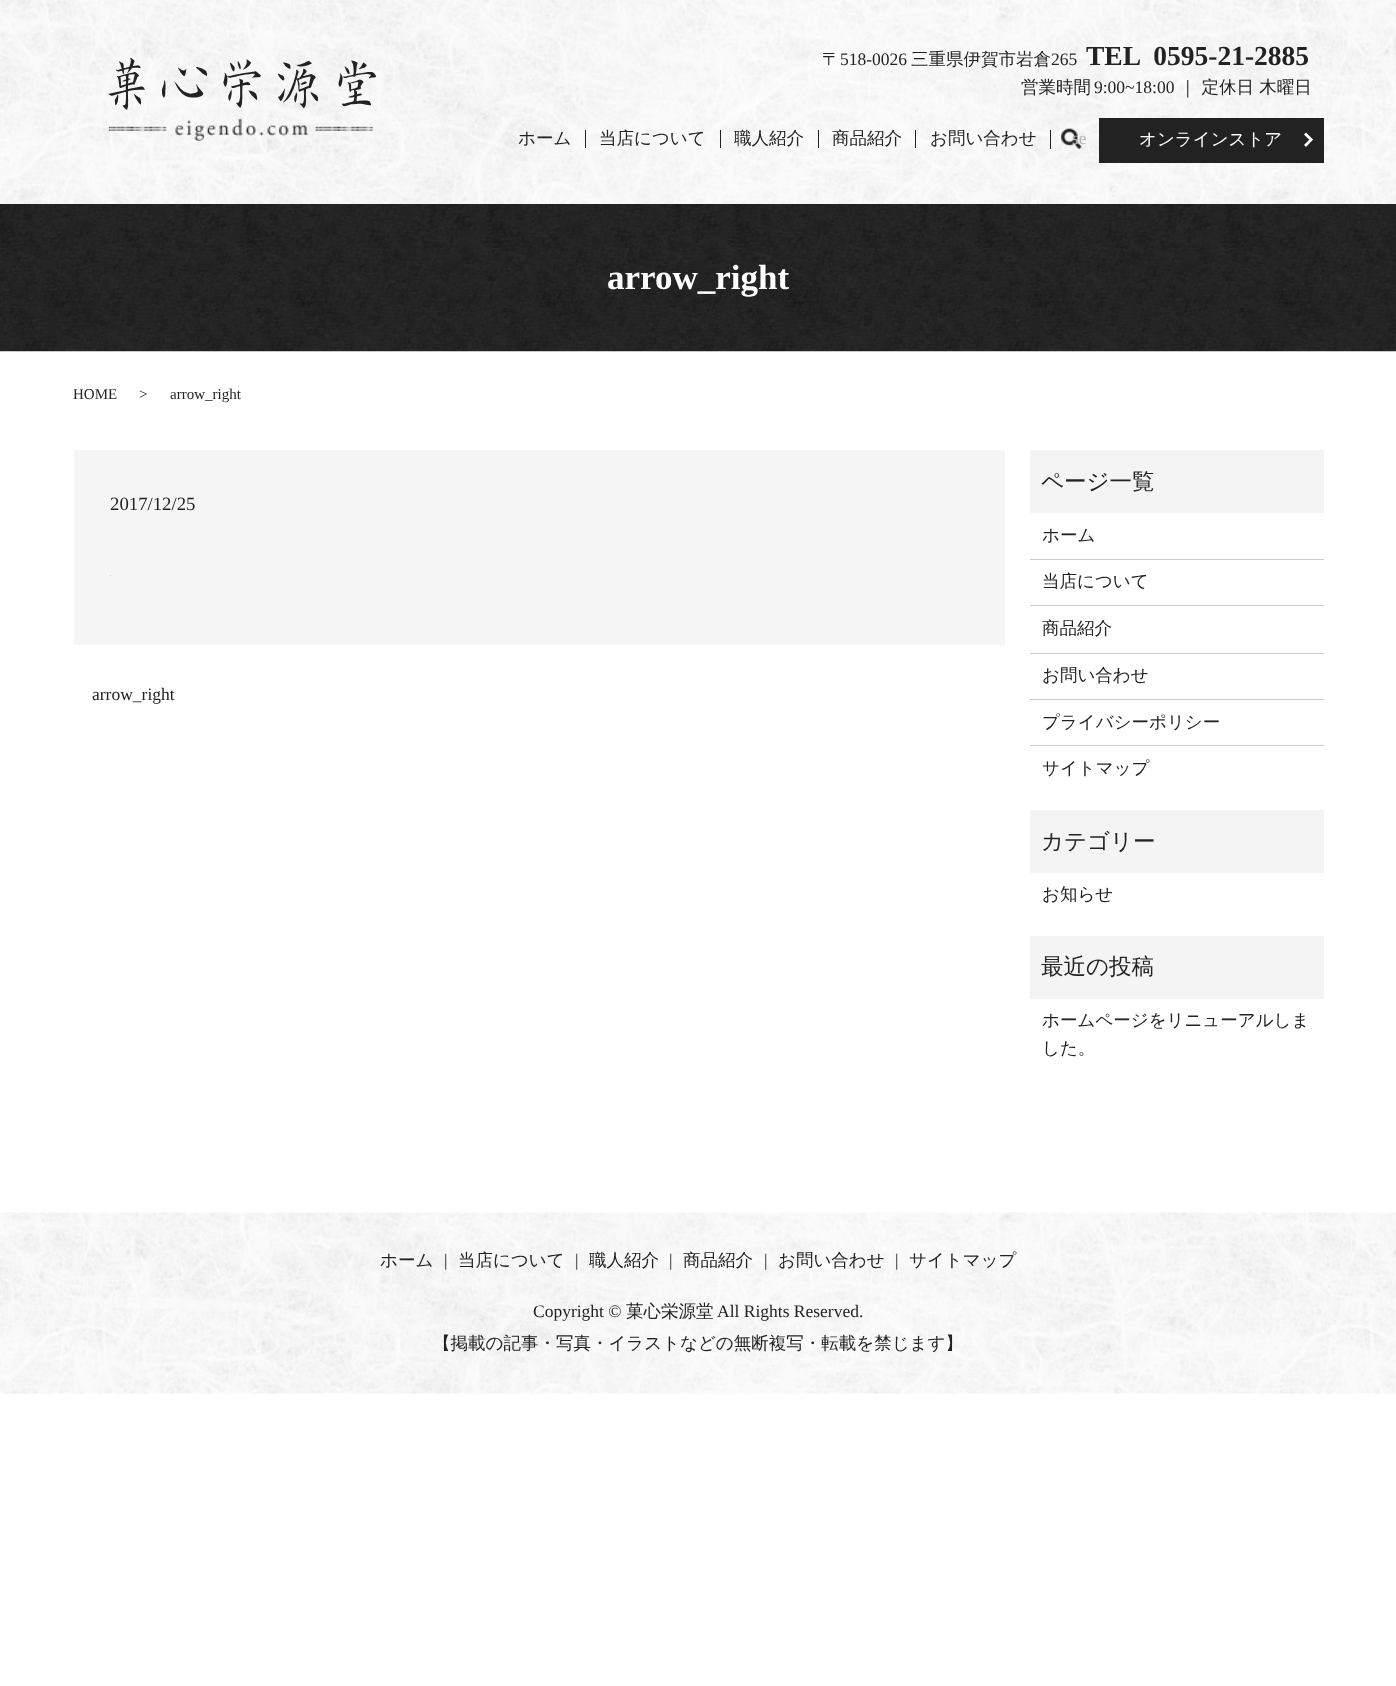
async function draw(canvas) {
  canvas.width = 1396;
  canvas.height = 1686;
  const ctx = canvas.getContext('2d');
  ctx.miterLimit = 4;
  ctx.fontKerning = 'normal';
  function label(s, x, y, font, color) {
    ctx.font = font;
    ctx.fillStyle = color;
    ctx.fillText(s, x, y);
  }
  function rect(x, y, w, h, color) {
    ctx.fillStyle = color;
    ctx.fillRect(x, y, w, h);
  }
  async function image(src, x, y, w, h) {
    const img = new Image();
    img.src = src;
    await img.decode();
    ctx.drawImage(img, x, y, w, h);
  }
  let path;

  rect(0, 0, 1396, 1686, '#fff');
  await image('assets/img4.png', 0, 203, 1396, 149);
  await image('assets/img1.png', 0, 0, 1396, 204);
  await image('assets/img2.png', 108, 57, 269, 84);
  label('〒', 822, 65, '500 17.5px WenQuanYi Zen Hei', '#222');
  label('518-0026', 840, 65, '17.5px Liberation Serif', '#222');
  label('三重県伊賀市岩倉', 911, 65, '500 17.5px WenQuanYi Zen Hei', '#222');
  label('265', 1051, 65, '17.5px Liberation Serif', '#222');
  label('TEL  0595-21-2885', 1086, 65, 'bold 27.5px Liberation Serif', '#222');
  label('営業時間', 1021, 93, '500 17.5px WenQuanYi Zen Hei', '#222');
  label('9:00~18:00', 1094, 93, '17.5px Liberation Serif', '#222');
  label('｜ 定休日 木曜日', 1179, 93, '500 17.5px WenQuanYi Zen Hei', '#222');
  label('ホーム', 518, 144, '500 17.5px WenQuanYi Zen Hei', '#222');
  rect(585, 130, 1, 18, '#222');
  label('当店について', 599, 144, '500 17.5px WenQuanYi Zen Hei', '#222');
  rect(720, 130, 1, 18, '#222');
  label('職人紹介', 734, 144, '500 17.5px WenQuanYi Zen Hei', '#222');
  rect(818, 130, 1, 18, '#222');
  label('商品紹介', 832, 144, '500 17.5px WenQuanYi Zen Hei', '#222');
  rect(915, 130, 1, 18, '#222');
  label('お問い合わせ', 930, 144, '500 17.5px WenQuanYi Zen Hei', '#222');
  await image('assets/img3.png', 1061, 128, 21, 21);
  rect(1050, 130, 1, 19, '#222');
  label('se', 1072, 144, '17.5px Liberation Serif', '#b6b6b6');
  rect(1099, 118, 225, 45, '#222');
  label('オンラインストア', 1139, 145, '500 17.5px WenQuanYi Zen Hei', '#fff');
  path = new Path2D('M1306 132.5L1313 139.5L1311 141.5L1304 134.5Z');
  ctx.fill(path);
  path = new Path2D('M1311 138L1313 139.5L1306 147L1304 145Z');
  ctx.fill(path);
  label('arrow_right', 607, 289, 'bold 35px Liberation Serif', '#fff');
  label('HOME', 73, 399, '15px Liberation Serif', '#222');
  label('>', 139, 399, '15px Liberation Serif', '#222');
  label('arrow_right', 170, 399, '15px Liberation Serif', '#222');
  rect(74, 450, 931, 195, '#f5f5f5');
  label('2017/12/25', 110, 510, '18.75px Liberation Serif', '#222');
  rect(110, 575, 1, 1, '#d0d0d0');
  label('arrow_right', 92, 700, '17.5px Liberation Serif', '#222');
  rect(1030, 450, 294, 63, '#f4f4f4');
  label('ページ一覧', 1041, 489, '500 22.5px WenQuanYi Zen Hei', '#222');
  rect(1030, 559, 294, 1, '#ccc');
  label('ホーム', 1042, 541, '500 17.5px WenQuanYi Zen Hei', '#222');
  rect(1030, 605, 294, 1, '#ccc');
  label('当店について', 1042, 587, '500 17.5px WenQuanYi Zen Hei', '#222');
  rect(1030, 653, 294, 1, '#ccc');
  label('商品紹介', 1042, 634, '500 17.5px WenQuanYi Zen Hei', '#222');
  rect(1030, 699, 294, 1, '#ccc');
  label('お問い合わせ', 1042, 681, '500 17.5px WenQuanYi Zen Hei', '#222');
  rect(1030, 745, 294, 1, '#ccc');
  label('プライバシーポリシー', 1042, 728, '500 17.5px WenQuanYi Zen Hei', '#222');
  label('サイトマップ', 1042, 774, '500 17.5px WenQuanYi Zen Hei', '#222');
  rect(1030, 810, 294, 63, '#f4f4f4');
  label('カテゴリー', 1041, 849, '500 22.5px WenQuanYi Zen Hei', '#222');
  label('お知らせ', 1042, 900, '500 17.5px WenQuanYi Zen Hei', '#222');
  rect(1030, 936, 294, 63, '#f4f4f4');
  label('最近の投稿', 1041, 974, '500 22.5px WenQuanYi Zen Hei', '#222');
  label('ホームページをリニューアルしま', 1042, 1026, '500 17.5px WenQuanYi Zen Hei', '#222');
  label('した。', 1042, 1054, '500 17.5px WenQuanYi Zen Hei', '#222');
  await image('assets/img5.png', 0, 1212, 1396, 182);
  label('ホーム', 380, 1266, '500 17.5px WenQuanYi Zen Hei', '#222');
  label('|', 444, 1266, '17.5px Liberation Serif', '#222');
  label('当店について', 458, 1266, '500 17.5px WenQuanYi Zen Hei', '#222');
  label('|', 575, 1266, '17.5px Liberation Serif', '#222');
  label('職人紹介', 589, 1266, '500 17.5px WenQuanYi Zen Hei', '#222');
  label('|', 669, 1266, '17.5px Liberation Serif', '#222');
  label('商品紹介', 683, 1266, '500 17.5px WenQuanYi Zen Hei', '#222');
  label('|', 764, 1266, '17.5px Liberation Serif', '#222');
  label('お問い合わせ', 778, 1266, '500 17.5px WenQuanYi Zen Hei', '#222');
  label('|', 895, 1266, '17.5px Liberation Serif', '#222');
  label('サイトマップ', 909, 1266, '500 17.5px WenQuanYi Zen Hei', '#222');
  label('Copyright ©', 533, 1317, '17.5px Liberation Serif', '#222');
  label('菓心栄源堂', 626, 1317, '500 17.5px WenQuanYi Zen Hei', '#222');
  label('All Rights Reserved.', 717, 1317, '17.5px Liberation Serif', '#222');
  label('【掲載の記事・写真・イラストなどの無断複写・転載を禁じます】', 433, 1349, '500 17.5px WenQuanYi Zen Hei', '#222');
}

draw(document.querySelector('canvas'));
